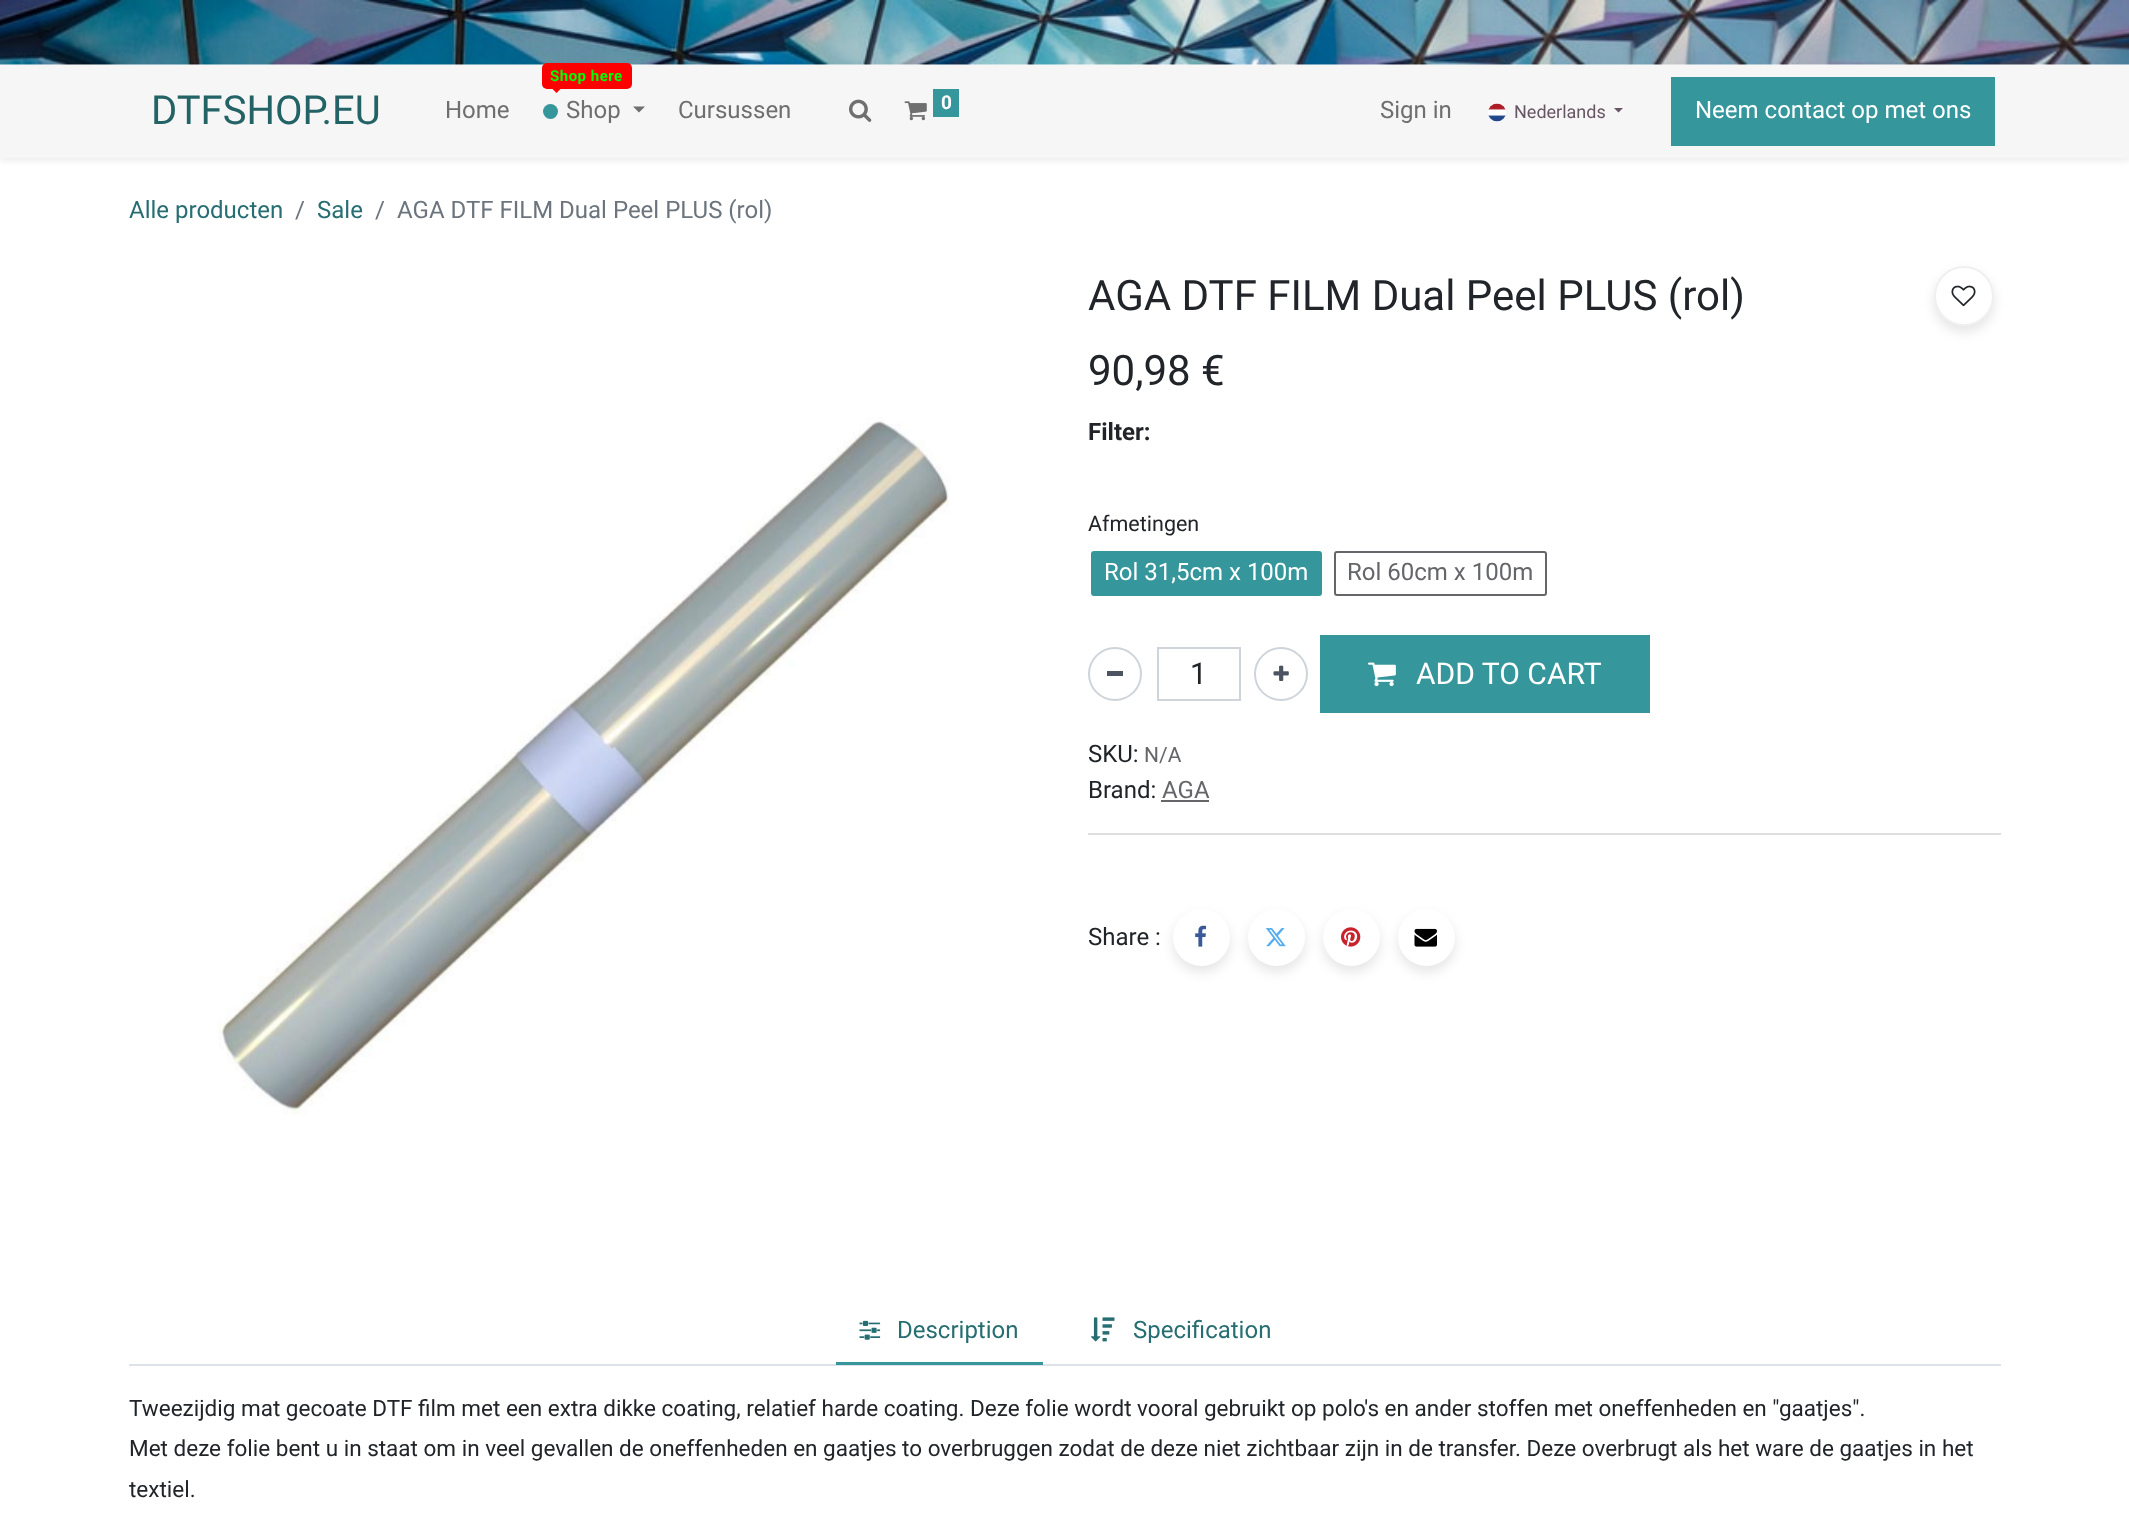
async function draw(canvas) {
  canvas.width = 2129;
  canvas.height = 1522;
  const ctx = canvas.getContext('2d');
  ctx.miterLimit = 4;
  ctx.fontKerning = 'normal';
  function label(s, x, y, font, color) {
    ctx.font = font;
    ctx.fillStyle = color;
    ctx.fillText(s, x, y);
  }
  function rect(x, y, w, h, color) {
    ctx.fillStyle = color;
    ctx.fillRect(x, y, w, h);
  }
  function roundedRect(x, y, w, h, r, color) {
    ctx.fillStyle = color;
    ctx.beginPath();
    ctx.roundRect(x, y, w, h, r);
    ctx.fill();
  }
  async function image(src, x, y, w, h) {
    const img = new Image();
    img.src = src;
    await img.decode();
    ctx.drawImage(img, x, y, w, h);
  }
  let path;

  rect(0, 0, 2129, 1522, '#fff');
  await image('assets/img1.png', 0, 0, 2129, 65);
  ctx.fillStyle = '#00000012';
  ctx.filter = 'blur(3px)';
  ctx.beginPath();
  ctx.rect(0, 68, 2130, 93);
  ctx.fill();
  ctx.filter = 'none';
  rect(0, 65, 2129, 93, '#f6f6f6');
  label('DTFSHOP.EU', 151, 124, '40px Roboto', '#236366');
  label('Home', 445, 118, '24px Roboto', '#6f6f6f');
  roundedRect(542, 63, 90, 26, 5, '#f00');
  ctx.letterSpacing = '0.5px';
  label('Shop here', 550, 81, 'bold 15px Roboto', '#0f0');
  ctx.fillStyle = '#f00';
  path = new Path2D('M550.5 87H562.5L556.5 93Z');
  ctx.fill(path);
  ctx.fillStyle = '#35979c';
  ctx.beginPath();
  ctx.arc(550.5, 111.5, 7.5, 0, 2 * Math.PI);
  ctx.fill();
  ctx.letterSpacing = '0px';
  label('Shop', 566, 118, '24px Roboto', '#6f6f6f');
  path = new Path2D('M633 106.5H645L639 112.5Z');
  ctx.fill(path);
  label('Cursussen', 678, 118, '24px Roboto', '#6f6f6f');
  await image('assets/img2.png', 849, 99, 23, 23);
  await image('assets/img3.png', 904, 101, 23, 20);
  rect(933, 89, 26, 28, '#35979c');
  label('0', 941, 109, 'bold 19px Roboto', '#fff');
  label('Sign in', 1380, 118, '24px Roboto', '#6f6f6f');
  await image('assets/img4.png', 1488, 103, 18, 19);
  label('Nederlands', 1514, 118, '18px Roboto', '#685563');
  path = new Path2D('M1614 108H1623L1618.5 112.5Z');
  ctx.fill(path);
  rect(1671, 77, 324, 69, '#35979c');
  label('Neem contact op met ons', 1695, 118, '24px Roboto', '#fff');
  label('Alle producten', 129, 218, '24px Roboto', '#276e72');
  label('/', 295, 218, '24px Roboto', '#6c757d');
  label('Sale', 317, 218, '24px Roboto', '#276e72');
  label('/', 375, 218, '24px Roboto', '#6c757d');
  label('AGA DTF FILM Dual Peel PLUS (rol)', 397, 218, '24px Roboto', '#6c757d');
  await image('assets/img5.png', 218, 417, 732, 698);
  label('AGA DTF FILM Dual Peel PLUS (rol)', 1088, 310, '42px Roboto', '#212529');
  ctx.fillStyle = '#0000001a';
  ctx.filter = 'blur(6px)';
  ctx.beginPath();
  ctx.roundRect(1934, 272, 60, 60, 30);
  ctx.fill();
  ctx.filter = 'none';
  ctx.fillStyle = '#fff';
  ctx.beginPath();
  ctx.arc(1964, 296, 29, 0, 2 * Math.PI);
  ctx.fill();
  ctx.strokeStyle = '#f0f0f0';
  ctx.lineWidth = 2;
  ctx.stroke();
  await image('assets/img6.png', 1951, 285, 25, 22);
  label('90,98 €', 1088, 385, '42px Roboto', '#212529');
  label('Filter:', 1088, 440, 'bold 24px Roboto', '#212529');
  label('Afmetingen', 1088, 531, '21.5px Roboto', '#212529');
  ctx.fillStyle = '#35979c';
  ctx.beginPath();
  ctx.roundRect(1092, 552, 229, 43, 2);
  ctx.fill();
  ctx.strokeStyle = '#35979c';
  ctx.stroke();
  label('Rol 31,5cm x 100m', 1104, 580, '24px Roboto', '#fff');
  ctx.beginPath();
  ctx.roundRect(1335, 552, 211, 43, 2);
  ctx.strokeStyle = '#646669';
  ctx.stroke();
  label('Rol 60cm x 100m', 1347, 580, '24px Roboto', '#646669');
  ctx.beginPath();
  ctx.arc(1115, 674, 26, 0, 2 * Math.PI);
  ctx.strokeStyle = '#ced4da';
  ctx.stroke();
  rect(1107, 671, 16, 5, '#4c5462');
  ctx.strokeRect(1158, 648, 82, 52);
  label('1', 1190, 684, '30px Roboto', '#212529');
  ctx.beginPath();
  ctx.arc(1281, 674, 26, 0, 2 * Math.PI);
  ctx.stroke();
  await image('assets/img7.png', 1273, 665, 16, 16);
  rect(1320, 635, 330, 78, '#35979c');
  await image('assets/img8.png', 1368, 662, 28, 25);
  label('ADD TO CART', 1416, 684, '30px Roboto', '#fff');
  label('SKU:', 1088, 762, '24px Roboto', '#212529');
  label('N/A', 1144, 762, '21px Roboto', '#646669');
  label('Brand:', 1088, 798, '24px Roboto', '#212529');
  label('AGA', 1162, 798, '24px Roboto', '#646669');
  rect(1161, 800, 48, 2, '#646669');
  rect(1088, 833, 913, 2, '#dededf');
  label('Share :', 1088, 945, '24px Roboto', '#212529');
  ctx.fillStyle = '#0000001a';
  ctx.filter = 'blur(6px)';
  ctx.beginPath();
  ctx.roundRect(1173, 915, 57, 57, 28.5);
  ctx.fill();
  ctx.filter = 'none';
  ctx.fillStyle = '#fff';
  ctx.beginPath();
  ctx.arc(1201.5, 937.5, 28.5, 0, 2 * Math.PI);
  ctx.fill();
  await image('assets/img9.png', 1195, 925, 12, 22);
  ctx.fillStyle = '#0000001a';
  ctx.filter = 'blur(6px)';
  ctx.beginPath();
  ctx.roundRect(1248, 915, 57, 57, 28.5);
  ctx.fill();
  ctx.filter = 'none';
  ctx.fillStyle = '#fff';
  ctx.beginPath();
  ctx.arc(1276.5, 937.5, 28.5, 0, 2 * Math.PI);
  ctx.fill();
  await image('assets/img10.png', 1265, 928, 21, 19);
  ctx.fillStyle = '#0000001a';
  ctx.filter = 'blur(6px)';
  ctx.beginPath();
  ctx.roundRect(1323, 915, 57, 57, 28.5);
  ctx.fill();
  ctx.filter = 'none';
  ctx.fillStyle = '#fff';
  ctx.beginPath();
  ctx.arc(1351.5, 937.5, 28.5, 0, 2 * Math.PI);
  ctx.fill();
  await image('assets/img11.png', 1341, 927, 20, 20);
  ctx.fillStyle = '#0000001a';
  ctx.filter = 'blur(6px)';
  ctx.beginPath();
  ctx.roundRect(1398, 915, 57, 57, 28.5);
  ctx.fill();
  ctx.filter = 'none';
  ctx.fillStyle = '#fff';
  ctx.beginPath();
  ctx.arc(1426.5, 937.5, 28.5, 0, 2 * Math.PI);
  ctx.fill();
  await image('assets/img12.png', 1414, 928, 23, 19);
  rect(129, 1364, 1872, 2, '#dee2e6');
  rect(836, 1362, 207, 3, '#35979c');
  await image('assets/img13.png', 859, 1320, 22, 20);
  label('Description', 897, 1338, '24px Roboto', '#276e72');
  await image('assets/img14.png', 1091, 1317, 24, 25);
  label('Specification', 1133, 1338, '24px Roboto', '#276e72');
  label('Tweezijdig mat gecoate DTF film met een extra dikke coating, relatief harde coating. Deze folie wordt vooral gebruikt op polo\'s en ander stoffen met oneffenheden en "gaatjes".', 129, 1416, '22.5px Roboto', '#212529');
  label('Met deze folie bent u in staat om in veel gevallen de oneffenheden en gaatjes to overbruggen zodat de deze niet zichtbaar zijn in de transfer. Deze overbrugt als het ware de gaatjes in het', 129, 1456, '22.5px Roboto', '#212529');
  label('textiel.', 129, 1497, '22.5px Roboto', '#212529');
}

draw(document.querySelector('canvas'));
